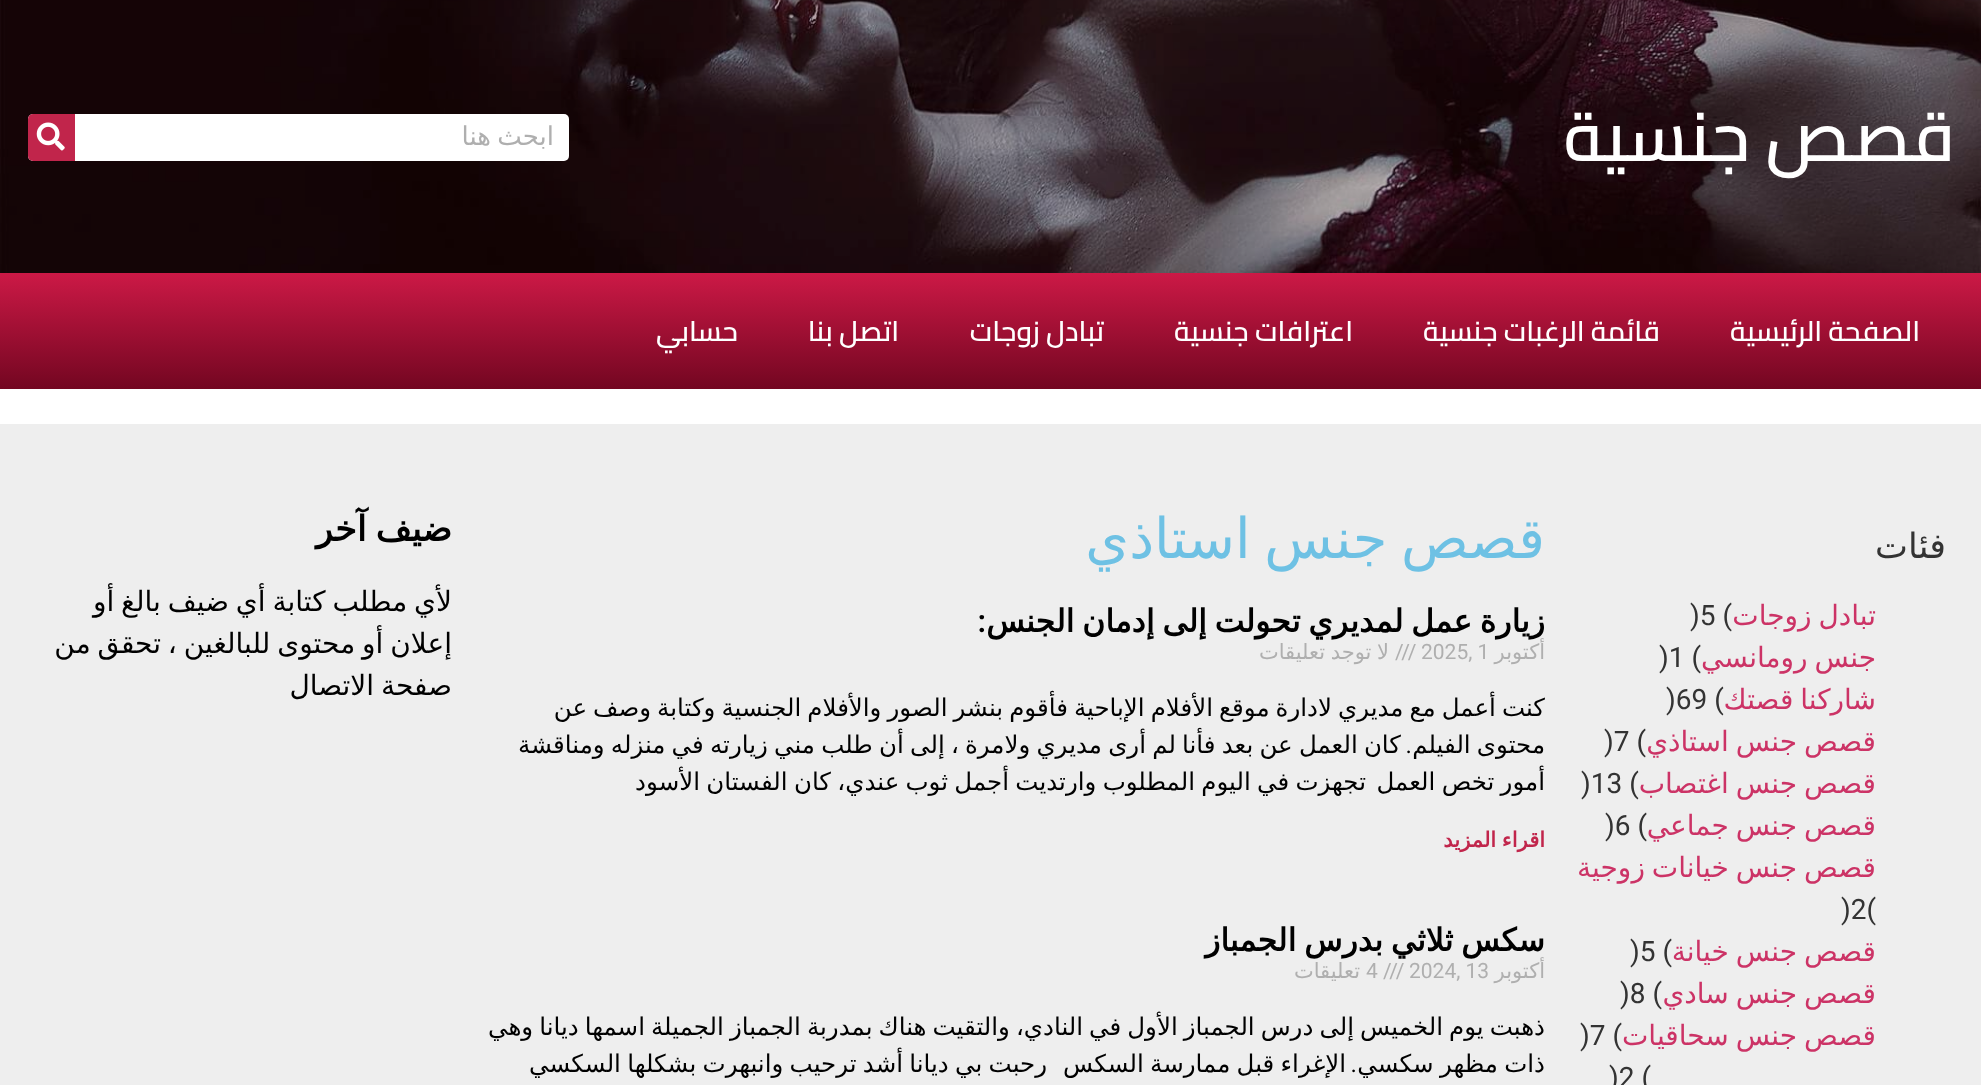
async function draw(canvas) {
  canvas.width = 1981;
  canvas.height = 1085;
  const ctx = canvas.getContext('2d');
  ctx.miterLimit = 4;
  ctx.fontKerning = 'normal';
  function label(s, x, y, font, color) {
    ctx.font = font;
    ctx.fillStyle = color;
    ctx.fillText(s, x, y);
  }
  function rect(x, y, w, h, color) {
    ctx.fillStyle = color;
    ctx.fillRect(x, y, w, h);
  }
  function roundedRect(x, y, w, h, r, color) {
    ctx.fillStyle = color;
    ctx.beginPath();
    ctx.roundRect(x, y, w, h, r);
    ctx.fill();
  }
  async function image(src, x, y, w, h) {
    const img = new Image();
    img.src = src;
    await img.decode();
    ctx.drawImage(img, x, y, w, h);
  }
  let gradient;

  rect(0, 0, 1981, 1085, '#fff');
  await image('assets/img1.png', 0, 0, 1981, 273);
  ctx.direction = 'rtl';
  label('قصص جنسية', 1955, 161, '600 70px Cairo', '#fff');
  roundedRect(28, 114, 541, 47, 5, '#fff');
  ctx.save();
  ctx.beginPath();
  ctx.rect(116, 121, 437, 31);
  ctx.clip();
  ctx.wordSpacing = '-2px';
  label('ابحث هنا', 554, 145, '26px DejaVu Sans', '#afafaf');
  ctx.restore();
  ctx.fillStyle = '#c1254b';
  ctx.beginPath();
  ctx.roundRect(28, 114, 47, 47, [5, 0, 0, 5]);
  ctx.fill();
  await image('assets/img2.png', 36, 122, 29, 29);
  gradient = ctx.createLinearGradient(991, 273, 991, 389);
  gradient.addColorStop(0, '#cc1946');
  gradient.addColorStop(1, '#730621');
  ctx.fillStyle = gradient;
  ctx.fillRect(0, 273, 1981, 116);
  label('الصفحة الرئيسية', 1920, 341, '600 28px Cairo', '#fff');
  label('قائمة الرغبات جنسية', 1660, 341, '600 28px Cairo', '#fff');
  label('اعترافات جنسية', 1353, 341, '600 28px Cairo', '#fff');
  label('تبادل زوجات', 1104, 341, '600 28px Cairo', '#fff');
  label('اتصل بنا', 899, 341, '600 28px Cairo', '#fff');
  label('حسابي', 738, 341, '600 28px Cairo', '#fff');
  rect(0, 424, 1981, 661, '#eee');
  label('فئات', 1946, 558, '35px DejaVu Sans', '#333');
  ctx.wordSpacing = '-2px';
  label('تبادل زوجات', 1876, 625, '28px DejaVu Sans', '#c36');
  ctx.wordSpacing = '0px';
  ctx.direction = 'ltr';
  label(')5 (', 1690, 625, '28px Roboto', '#333');
  ctx.wordSpacing = '-2px';
  ctx.direction = 'rtl';
  label('جنس رومانسي', 1876, 667, '28px DejaVu Sans', '#c36');
  ctx.wordSpacing = '0px';
  ctx.direction = 'ltr';
  label(')1 (', 1659, 667, '28px Roboto', '#333');
  ctx.wordSpacing = '-2px';
  ctx.direction = 'rtl';
  label('شاركنا قصتك', 1876, 709, '28px DejaVu Sans', '#c36');
  ctx.wordSpacing = '0px';
  ctx.direction = 'ltr';
  label(')69 (', 1666, 709, '28px Roboto', '#333');
  ctx.wordSpacing = '-2px';
  ctx.direction = 'rtl';
  label('قصص جنس استاذي', 1876, 751, '28px DejaVu Sans', '#c36');
  ctx.wordSpacing = '0px';
  ctx.direction = 'ltr';
  label(')7 (', 1604, 751, '28px Roboto', '#333');
  ctx.wordSpacing = '-2px';
  ctx.direction = 'rtl';
  label('قصص جنس اغتصاب', 1876, 793, '28px DejaVu Sans', '#c36');
  ctx.wordSpacing = '0px';
  ctx.direction = 'ltr';
  label(')13 (', 1581, 793, '28px Roboto', '#333');
  ctx.wordSpacing = '-2px';
  ctx.direction = 'rtl';
  label('قصص جنس جماعي', 1876, 835, '28px DejaVu Sans', '#c36');
  ctx.wordSpacing = '0px';
  ctx.direction = 'ltr';
  label(')6 (', 1605, 835, '28px Roboto', '#333');
  ctx.wordSpacing = '-2px';
  ctx.direction = 'rtl';
  label('قصص جنس خيانات زوجية', 1876, 877, '28px DejaVu Sans', '#c36');
  ctx.wordSpacing = '0px';
  ctx.direction = 'ltr';
  label(')2(', 1841, 919, '28px Roboto', '#333');
  ctx.wordSpacing = '-2px';
  ctx.direction = 'rtl';
  label('قصص جنس خيانة', 1876, 961, '28px DejaVu Sans', '#c36');
  ctx.wordSpacing = '0px';
  ctx.direction = 'ltr';
  label(')5 (', 1630, 961, '28px Roboto', '#333');
  ctx.wordSpacing = '-2px';
  ctx.direction = 'rtl';
  label('قصص جنس سادي', 1876, 1003, '28px DejaVu Sans', '#c36');
  ctx.wordSpacing = '0px';
  ctx.direction = 'ltr';
  label(')8 (', 1620, 1003, '28px Roboto', '#333');
  ctx.wordSpacing = '-2px';
  ctx.direction = 'rtl';
  label('قصص جنس سحاقيات', 1876, 1045, '28px DejaVu Sans', '#c36');
  ctx.wordSpacing = '0px';
  ctx.direction = 'ltr';
  label(')7 (', 1580, 1045, '28px Roboto', '#333');
  label(')2 (', 1609, 1087, '28px Roboto', '#333');
  ctx.wordSpacing = '-4px';
  ctx.direction = 'rtl';
  label('قصص جنس استاذي', 1545, 558, '56px DejaVu Sans', '#6ec1e4');
  ctx.save();
  ctx.beginPath();
  ctx.rect(487, 602, 1058, 257);
  ctx.clip();
  ctx.wordSpacing = '-2.25px';
  label('زيارة عمل لمديري تحولت إلى إدمان الجنس', 1545, 632, 'bold 31.5px DejaVu Sans', '#000');
  ctx.restore();
  ctx.wordSpacing = '0px';
  label(':', 986, 632, '600 31.5px Roboto', '#000');
  label('أكتوبر', 1545, 659, '21px DejaVu Sans', '#afafaf');
  ctx.direction = 'ltr';
  label('2025, 1', 1421, 659, '21px Roboto', '#afafaf');
  label('///', 1395, 659, '21px Roboto', '#afafaf');
  ctx.wordSpacing = '-1px';
  ctx.direction = 'rtl';
  label('لا توجد تعليقات', 1389, 659, '21px DejaVu Sans', '#afafaf');
  ctx.save();
  ctx.beginPath();
  ctx.rect(487, 602, 1058, 257);
  ctx.clip();
  ctx.wordSpacing = '-1.75px';
  label('كنت أعمل مع مديري لادارة موقع الأفلام الإباحية فأقوم بنشر الصور والأفلام الجنسية وكتابة وصف عن', 1545, 716, '24.5px DejaVu Sans', '#000');
  ctx.restore();
  ctx.wordSpacing = '-1.6px';
  label('محتوى الفيلم', 1545, 753, '24.5px DejaVu Sans', '#000');
  label('كان العمل عن بعد فأنا لم أرى مديري ولامرة ، إلى أن طلب مني زيارته في منزله ومناقشة', 1401, 753, '24.5px DejaVu Sans', '#000');
  ctx.wordSpacing = '0px';
  label('.', 1412, 753, '24.5px Roboto', '#000');
  ctx.save();
  ctx.beginPath();
  ctx.rect(487, 602, 1058, 257);
  ctx.clip();
  ctx.wordSpacing = '-1.5px';
  label('أمور تخص العمل', 1545, 790, '24.5px DejaVu Sans', '#000');
  ctx.restore();
  ctx.wordSpacing = '-1.5px';
  label('تجهزت في اليوم المطلوب وارتديت أجمل ثوب عندي، كان الفستان الأسود', 1366, 790, '24.5px DejaVu Sans', '#000');
  ctx.wordSpacing = '-1px';
  label('اقراء المزيد', 1545, 847, 'bold 21px DejaVu Sans', '#c1254b');
  ctx.save();
  ctx.beginPath();
  ctx.rect(487, 921, 1058, 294);
  ctx.clip();
  ctx.wordSpacing = '-2.25px';
  label('سكس ثلاثي بدرس الجمباز', 1545, 951, 'bold 31.5px DejaVu Sans', '#000');
  ctx.restore();
  ctx.wordSpacing = '0px';
  label('أكتوبر', 1545, 978, '21px DejaVu Sans', '#afafaf');
  ctx.direction = 'ltr';
  label('2024, 13', 1409, 978, '21px Roboto', '#afafaf');
  label('///', 1383, 978, '21px Roboto', '#afafaf');
  label('4', 1366, 978, '21px Roboto', '#afafaf');
  ctx.direction = 'rtl';
  label('تعليقات', 1360, 978, '21px DejaVu Sans', '#afafaf');
  ctx.save();
  ctx.beginPath();
  ctx.rect(487, 921, 1058, 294);
  ctx.clip();
  ctx.wordSpacing = '-1.75px';
  label('ذهبت يوم الخميس إلى درس الجمباز الأول في النادي، والتقيت هناك بمدربة الجمباز الجميلة اسمها ديانا وهي', 1545, 1035, '24.5px DejaVu Sans', '#000');
  ctx.wordSpacing = '-1.5px';
  label('ذات مظهر سكسي', 1545, 1072, '24.5px DejaVu Sans', '#000');
  ctx.restore();
  label('.', 1357, 1072, '24.5px Roboto', '#000');
  ctx.wordSpacing = '-1.5px';
  label('الإغراء قبل ممارسة السكس', 1346, 1072, '24.5px DejaVu Sans', '#000');
  label('رحبت بي ديانا أشد ترحيب وانبهرت بشكلها السكسي', 1047, 1072, '24.5px DejaVu Sans', '#000');
  ctx.wordSpacing = '-2px';
  label('ضيف آخر', 452, 541, 'bold 35px DejaVu Sans', '#000');
  label('لأي مطلب كتابة أي ضيف بالغ أو', 452, 611, '28px DejaVu Sans', '#000');
  label('إعلان أو محتوى للبالغين ، تحقق من', 452, 653, '28px DejaVu Sans', '#000');
  label('صفحة الاتصال', 452, 695, '28px DejaVu Sans', '#000');
}

draw(document.querySelector('canvas'));
